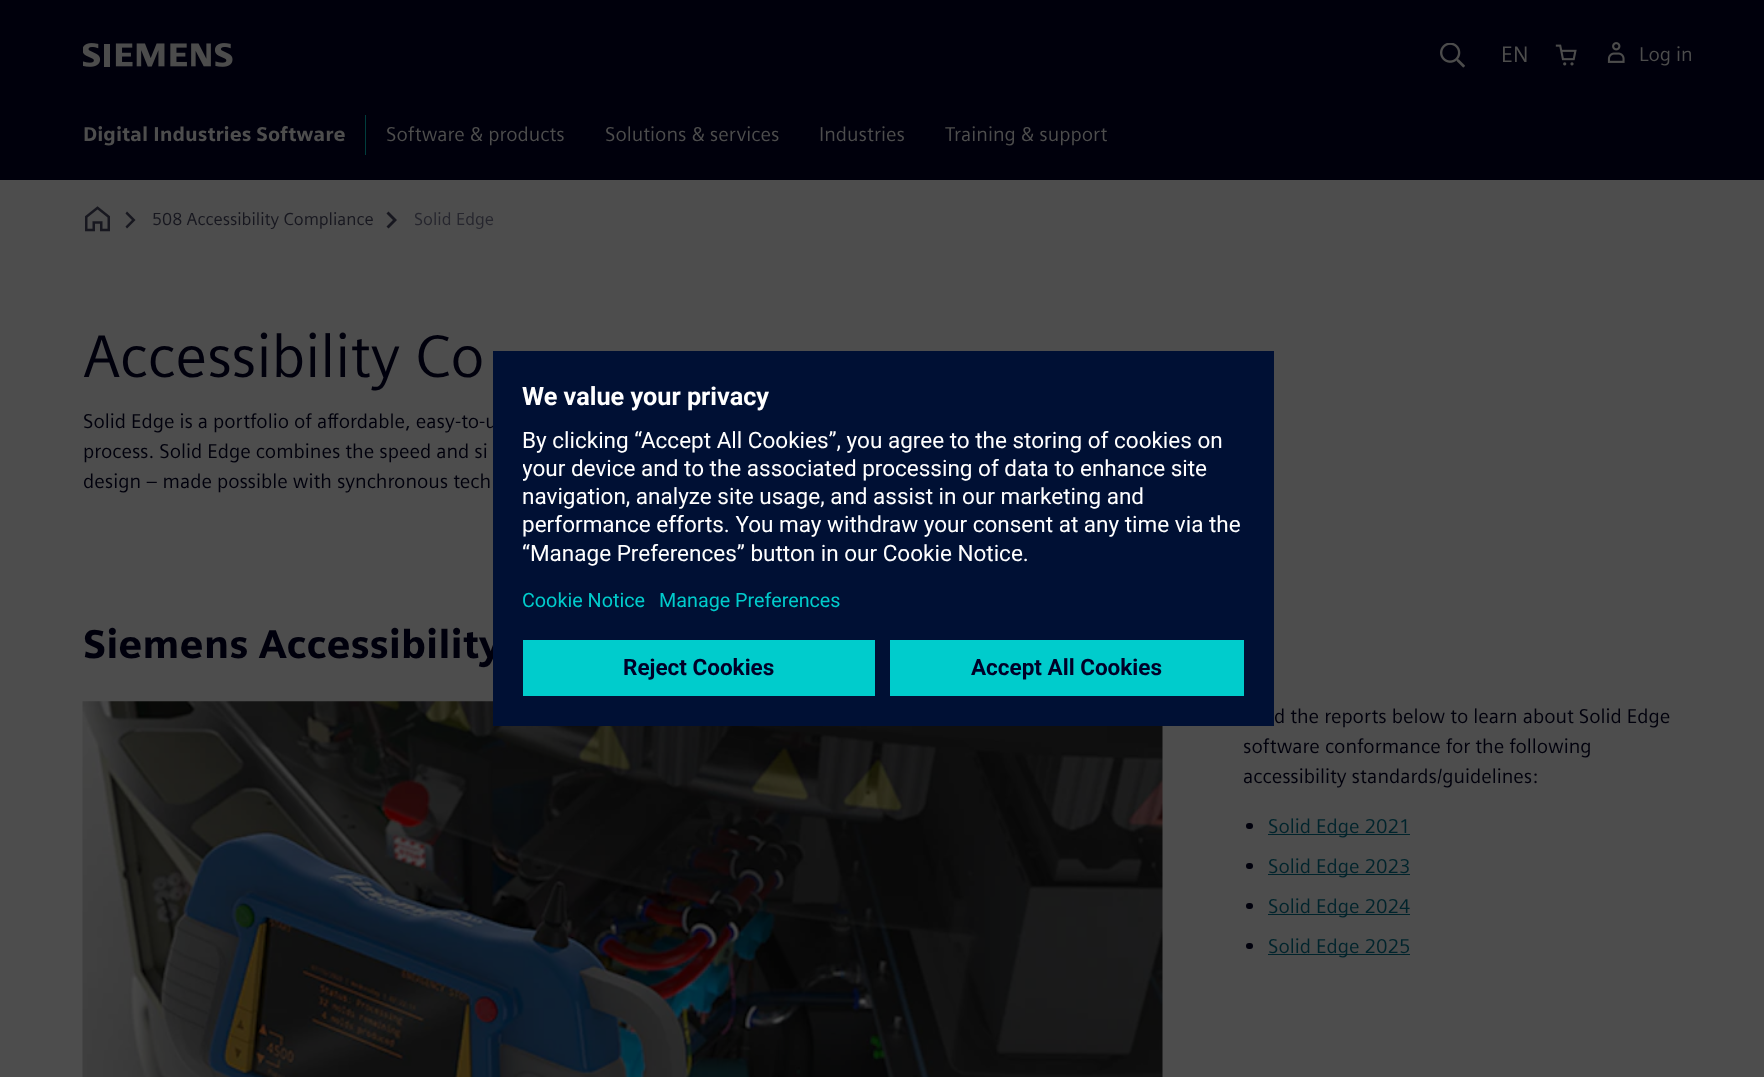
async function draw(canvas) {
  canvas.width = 1764;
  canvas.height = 1077;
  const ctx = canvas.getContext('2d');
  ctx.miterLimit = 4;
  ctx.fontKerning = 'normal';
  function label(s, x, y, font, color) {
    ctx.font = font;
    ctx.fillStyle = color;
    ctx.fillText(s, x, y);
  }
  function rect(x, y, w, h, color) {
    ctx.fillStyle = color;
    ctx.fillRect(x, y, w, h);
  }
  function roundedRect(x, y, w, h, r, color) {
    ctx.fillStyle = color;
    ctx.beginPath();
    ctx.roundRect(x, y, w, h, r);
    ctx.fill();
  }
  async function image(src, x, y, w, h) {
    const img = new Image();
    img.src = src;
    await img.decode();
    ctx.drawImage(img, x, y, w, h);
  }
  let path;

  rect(0, 0, 1764, 1077, '#4d4d4d');
  rect(0, 0, 1764, 180, '#00000c');
  await image('assets/img1.png', 1440, 43, 25, 25);
  label('EN', 1501, 62, '22.5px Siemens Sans', '#4d4d4d');
  await image('assets/img2.png', 1555, 44, 22, 22);
  await image('assets/img3.png', 1607, 42, 18, 21);
  label('Log in', 1639, 61, '20px Siemens Sans', '#4d4d4d');
  await image('assets/img4.png', 83, 43, 150, 24);
  rect(365, 115, 1, 40, '#003d3d');
  label('Digital Industries Software', 83, 141, '900 20px Siemens Sans', '#4d4d4d');
  label('Software & products', 386, 141, '20px Siemens Sans', '#4d4d4d');
  label('Solutions & services', 605, 141, '20px Siemens Sans', '#4d4d4d');
  label('Industries', 819, 141, '20px Siemens Sans', '#4d4d4d');
  label('Training & support', 945, 141, '20px Siemens Sans', '#4d4d4d');
  await image('assets/img5.png', 85, 206, 25, 26);
  ctx.fillStyle = '#17171f';
  path = new Path2D('M127 228.5L125.5 226.5L132 220L125.5 213.5L127 211.5L135.5 220Z');
  ctx.fill(path);
  label('508 Accessibility Compliance', 152, 225, '17.5px Siemens Sans', '#17171f');
  path = new Path2D('M388.5 228.5L386.5 226.5L393 220L386.5 213.5L388.5 211.5L397 220Z');
  ctx.fill(path);
  label('Solid Edge', 414, 225, '17.5px Siemens Sans', '#26262e');
  label('Accessibility Co', 83, 377, '60px "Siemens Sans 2"', '#00000c');
  label('Solid Edge is a portfolio of affordable, easy-to-u', 83, 428, '20px Siemens Sans', '#00000c');
  label('process. Solid Edge combines the speed and si', 83, 458, '20px Siemens Sans', '#00000c');
  label('design – made possible with synchronous tech', 83, 488, '20px Siemens Sans', '#00000c');
  label('Siemens Accessibility', 83, 658, '900 40px Siemens Sans', '#00000c');
  await image('assets/img6.png', 82, 701, 1081, 376);
  label('d the reports below to learn about Solid Edge', 1274, 723, '20px Siemens Sans', '#00000c');
  label('software conformance for the following', 1243, 753, '20px Siemens Sans', '#00000c');
  label('accessibility standards/guidelines:', 1243, 783, '20px Siemens Sans', '#00000c');
  roundedRect(1246, 823, 7, 6, 3, '#00000c');
  rect(1268, 834, 142, 1, '#00242c');
  label('Solid Edge 2021', 1268, 833, '20px Siemens Sans', '#00242c');
  roundedRect(1246, 863, 7, 6, 3, '#00000c');
  rect(1268, 874, 142, 1, '#00242c');
  label('Solid Edge 2023', 1268, 873, '20px Siemens Sans', '#00242c');
  roundedRect(1246, 903, 7, 6, 3, '#00000c');
  rect(1268, 914, 142, 1, '#00242c');
  label('Solid Edge 2024', 1268, 913, '20px Siemens Sans', '#00242c');
  roundedRect(1246, 943, 7, 6, 3, '#00000c');
  rect(1268, 954, 142, 1, '#00242c');
  label('Solid Edge 2025', 1268, 953, '20px Siemens Sans', '#00242c');
  rect(493, 351, 781, 375, '#001034');
  label('We value your privacy', 522, 405, 'bold 25.25px Roboto', '#fff');
  label('By clicking “Accept All Cookies”, you agree to the storing of cookies on', 522, 448, '22.5px Roboto', '#fff');
  ctx.save();
  ctx.beginPath();
  ctx.rect(523, 421, 721, 152);
  ctx.clip();
  label('your device and to the associated processing of data to enhance site', 522, 476, '22.5px Roboto', '#fff');
  ctx.restore();
  label('navigation, analyze site usage, and assist in our marketing and', 522, 504, '22.5px Roboto', '#fff');
  label('performance efforts. You may withdraw your consent at any time via the', 522, 532, '22.5px Roboto', '#fff');
  label('“Manage Preferences” button in our Cookie Notice.', 522, 561, '22.5px Roboto', '#fff');
  label('Cookie Notice', 522, 607, '19.75px Roboto', '#0cc');
  label('Manage Preferences', 659, 607, '19.75px Roboto', '#0cc');
  rect(523, 640, 352, 56, '#0cc');
  label('Reject Cookies', 623, 675, 'bold 22.5px Roboto', '#000028');
  rect(890, 640, 354, 56, '#0cc');
  label('Accept All Cookies', 971, 675, 'bold 22.5px Roboto', '#000028');
}

draw(document.querySelector('canvas'));
